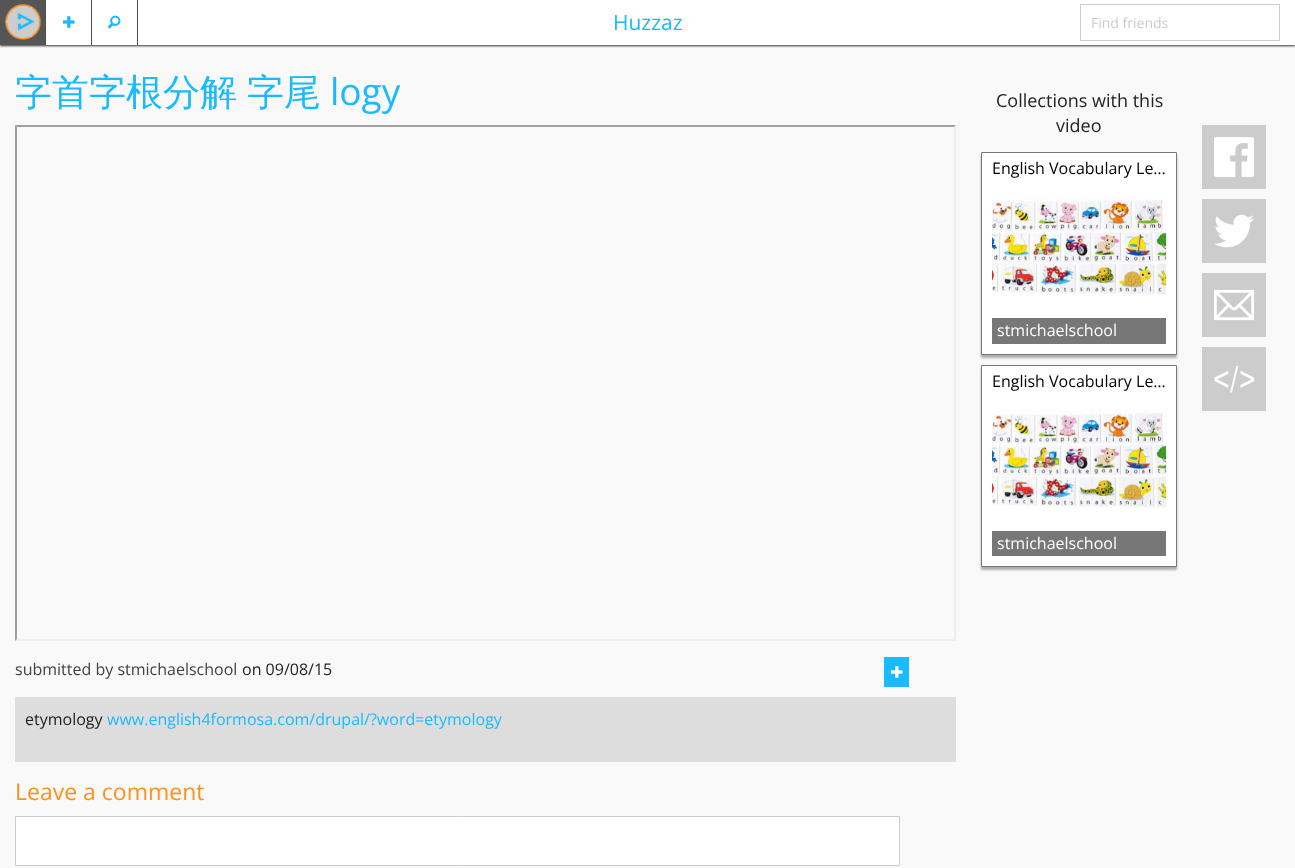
async function draw(canvas) {
  canvas.width = 1295;
  canvas.height = 868;
  const ctx = canvas.getContext('2d');
  ctx.miterLimit = 4;
  ctx.fontKerning = 'normal';
  function label(s, x, y, font, color) {
    ctx.font = font;
    ctx.fillStyle = color;
    ctx.fillText(s, x, y);
  }
  function rect(x, y, w, h, color) {
    ctx.fillStyle = color;
    ctx.fillRect(x, y, w, h);
  }
  async function image(src, x, y, w, h) {
    const img = new Image();
    img.src = src;
    await img.decode();
    ctx.drawImage(img, x, y, w, h);
  }
  let path;

  rect(0, 0, 1295, 868, '#f9f9fa');
  ctx.fillStyle = '#333';
  ctx.filter = 'blur(1px)';
  ctx.beginPath();
  ctx.rect(0, 1, 1295, 45);
  ctx.fill();
  ctx.filter = 'none';
  rect(46, 0, 1249, 45, '#fff');
  rect(0, 0, 45, 45, '#555');
  await image('assets/img1.png', 4, 4, 37, 36);
  rect(45, 0, 1, 45, '#4e4e4e');
  await image('assets/img2.png', 63, 16, 12, 12);
  rect(91, 0, 1, 45, '#4e4e4e');
  await image('assets/img3.png', 108, 15, 13, 14);
  rect(137, 0, 1, 45, '#4e4e4e');
  label('Huzzaz', 613, 30, '21px Open Sans', '#1abaff');
  ctx.strokeStyle = '#ccc';
  ctx.strokeRect(1080.5, 4.5, 199, 36);
  label('Find friends', 1091, 28, '14px Open Sans', '#ccc');
  ctx.wordSpacing = '-1px';
  label('字首字根分解 字尾', 15, 105, '500 37px WenQuanYi Zen Hei', '#1abaff');
  ctx.wordSpacing = '0px';
  label('logy', 330, 105, '37px Open Sans', '#1abaff');
  ctx.fillStyle = '#9f9f9f';
  path = new Path2D('M15 125H956L954 127H17Z');
  ctx.fill(path);
  ctx.fillStyle = '#eee';
  path = new Path2D('M956 125V641L954 639V127Z');
  ctx.fill(path);
  path = new Path2D('M956 641H15L17 639H954Z');
  ctx.fill(path);
  ctx.fillStyle = '#9f9f9f';
  path = new Path2D('M15 641V125L17 127V639Z');
  ctx.fill(path);
  label('submitted by stmichaelschool', 15, 675, '16px Open Sans', '#424242');
  label('on 09/08/15', 242, 675, '16px Open Sans', '#222');
  rect(884, 657, 25, 30, '#1abaff');
  await image('assets/img4.png', 891, 666, 12, 12);
  rect(15, 697, 941, 65, '#ddd');
  label('etymology', 25, 725, '16px Open Sans', '#222');
  label('www.english4formosa.com/drupal/?word=etymology', 107, 725, '16px Open Sans', '#1abaff');
  label('Leave a comment', 15, 800, '23px Open Sans', '#ff901a');
  ctx.fillStyle = '#fff';
  ctx.beginPath();
  ctx.rect(15.5, 816.5, 884, 49);
  ctx.fill();
  ctx.stroke();
  label('Collections with this', 996, 107, '18px Open Sans', '#222');
  label('video', 1056, 132, '18px Open Sans', '#222');
  ctx.fillStyle = '#0000004d';
  ctx.filter = 'blur(1px)';
  ctx.beginPath();
  ctx.rect(981, 155, 196, 203);
  ctx.fill();
  ctx.filter = 'none';
  ctx.fillStyle = '#fff';
  ctx.beginPath();
  ctx.rect(981.5, 152.5, 195, 202);
  ctx.fill();
  ctx.strokeStyle = '#777';
  ctx.stroke();
  label('English Vocabulary Le…', 992, 174, '16px Open Sans', '#000');
  await image('assets/img5.png', 992, 197, 175, 99);
  rect(992, 318, 174, 26, '#777');
  label('stmichaelschool', 997, 336, '16px Open Sans', '#fff');
  ctx.fillStyle = '#0000004d';
  ctx.filter = 'blur(1px)';
  ctx.beginPath();
  ctx.rect(981, 368, 196, 202);
  ctx.fill();
  ctx.filter = 'none';
  ctx.fillStyle = '#fff';
  ctx.beginPath();
  ctx.rect(981.5, 365.5, 195, 201);
  ctx.fill();
  ctx.stroke();
  label('English Vocabulary Le…', 992, 387, '16px Open Sans', '#000');
  await image('assets/img5.png', 992, 410, 175, 99);
  rect(992, 531, 174, 25, '#777');
  label('stmichaelschool', 997, 549, '16px Open Sans', '#fff');
  rect(1202, 125, 64, 64, '#ccc');
  await image('assets/img6.png', 1214, 137, 41, 41);
  rect(1202, 199, 64, 64, '#ccc');
  await image('assets/img7.png', 1214, 214, 40, 34);
  rect(1202, 273, 64, 64, '#ccc');
  await image('assets/img8.png', 1214, 289, 41, 32);
  rect(1202, 347, 64, 64, '#ccc');
  await image('assets/img9.png', 1214, 365, 41, 28);
}

draw(document.querySelector('canvas'));
